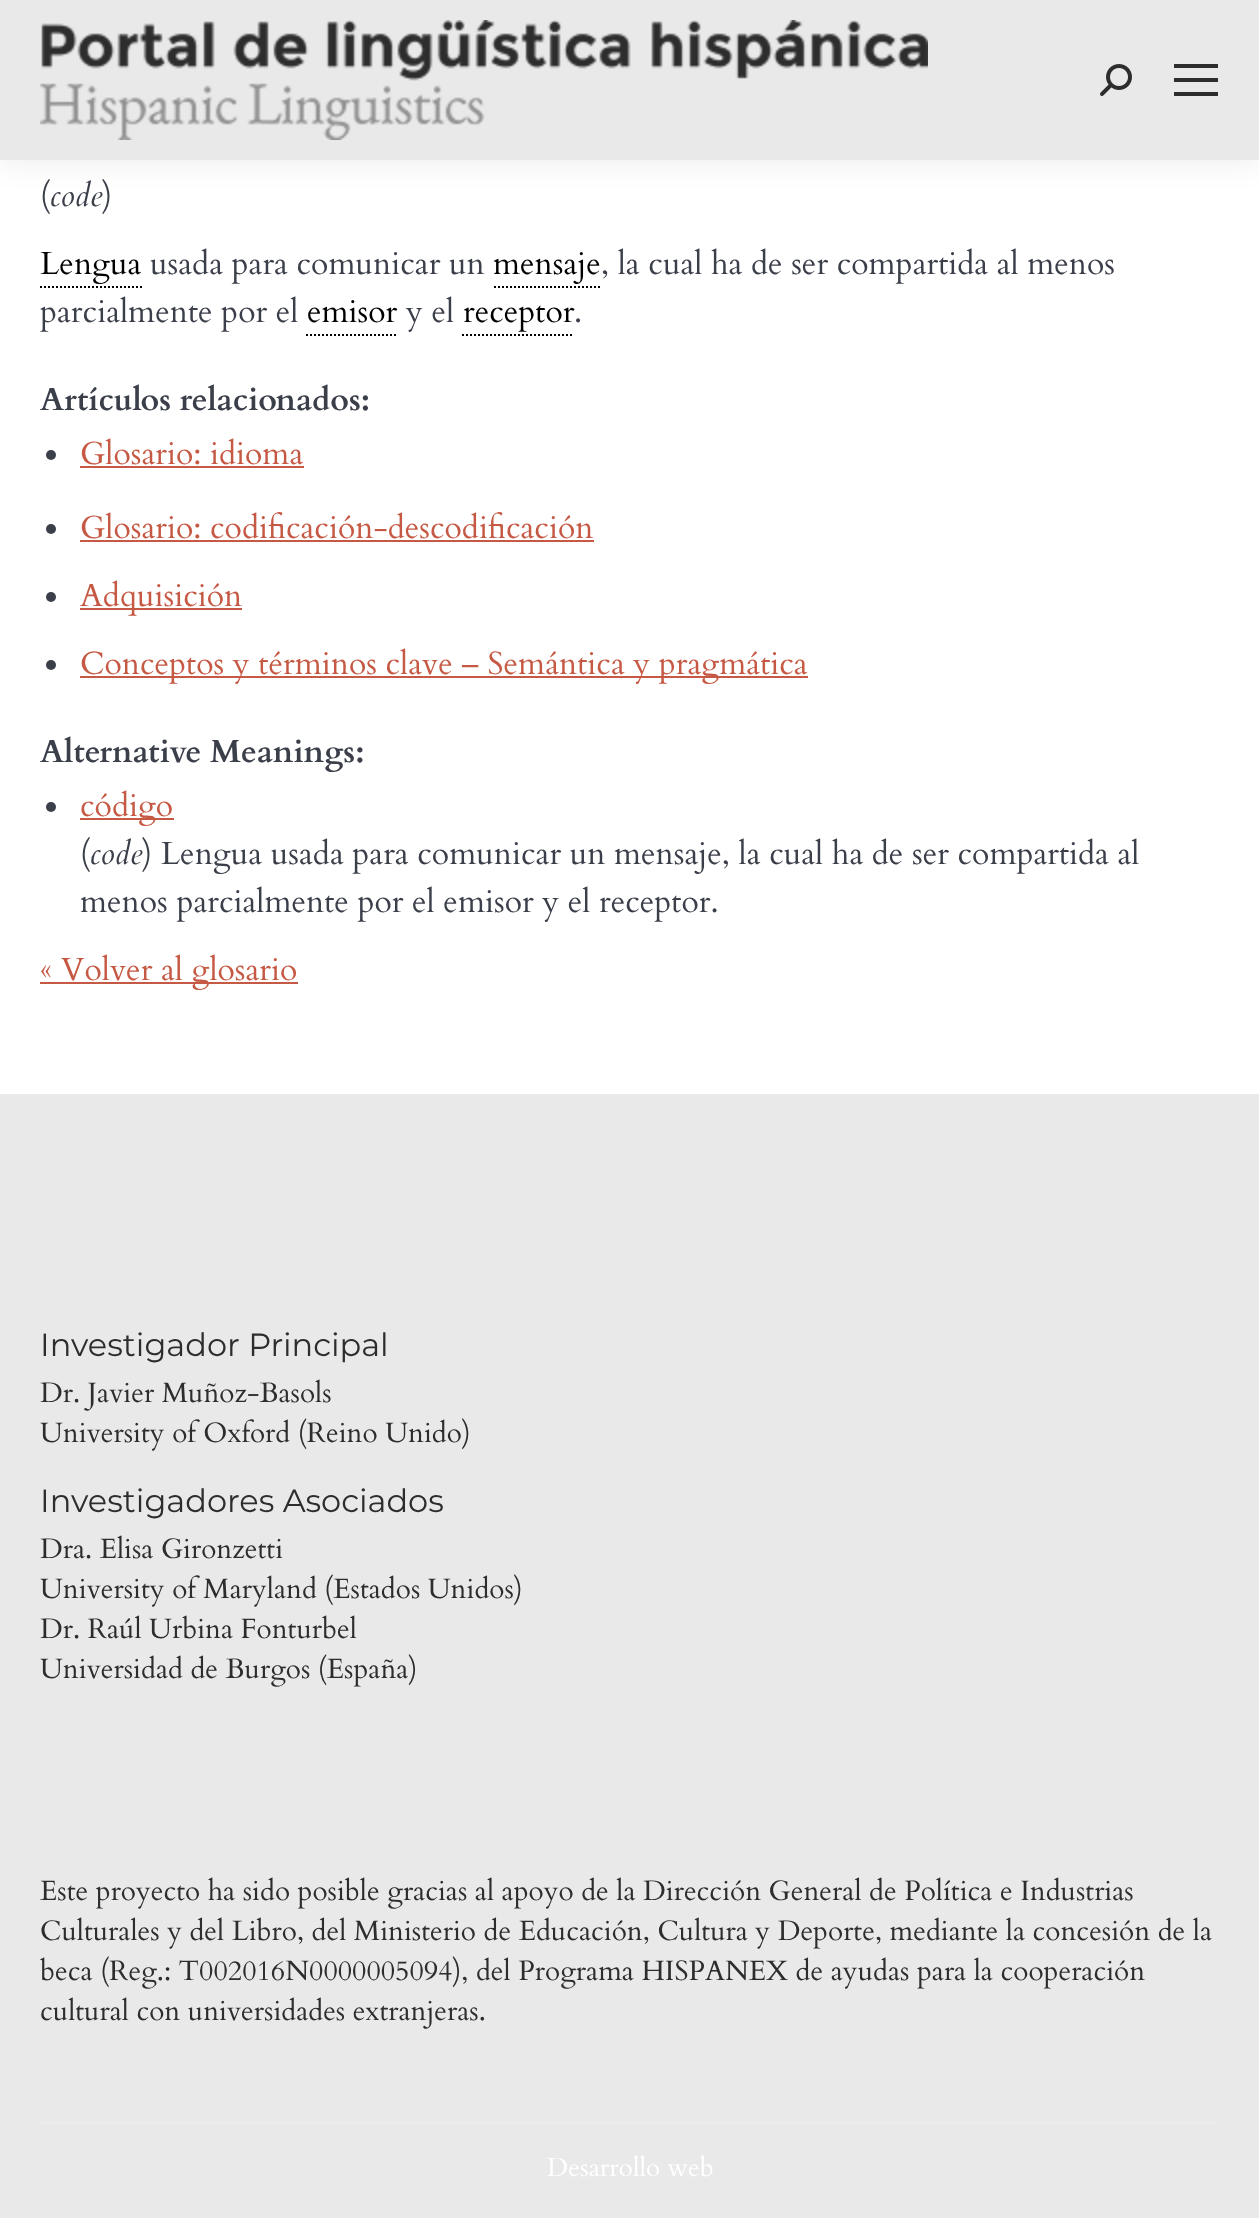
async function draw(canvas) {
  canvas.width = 1259;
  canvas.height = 2218;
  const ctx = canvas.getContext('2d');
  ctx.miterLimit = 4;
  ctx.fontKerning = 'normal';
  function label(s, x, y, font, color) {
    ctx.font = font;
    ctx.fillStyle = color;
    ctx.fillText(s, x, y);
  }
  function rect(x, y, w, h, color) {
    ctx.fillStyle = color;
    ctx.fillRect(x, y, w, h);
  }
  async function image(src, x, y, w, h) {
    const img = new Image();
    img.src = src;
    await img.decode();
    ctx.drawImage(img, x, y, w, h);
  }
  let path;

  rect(0, 0, 1259, 2218, '#fff');
  ctx.fillStyle = '#00000012';
  ctx.filter = 'blur(15px)';
  ctx.beginPath();
  ctx.rect(-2, -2, 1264, 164);
  ctx.fill();
  ctx.filter = 'none';
  rect(0, 0, 1259, 160, '#e9e9e9');
  await image('assets/img1.png', 40, 20, 888, 120);
  await image('assets/img2.png', 1100, 64, 32, 32);
  rect(1174, 64, 44, 4, '#2d2d2d');
  rect(1174, 78, 44, 4, '#2d2d2d');
  rect(1174, 92, 44, 4, '#2d2d2d');
  label('(', 40, 206, '32px Cardo', '#3b3f4a');
  label('code', 50, 206, 'italic 32px Cardo', '#3b3f4a');
  label(')', 102, 206, '32px Cardo', '#3b3f4a');
  label('Lengua', 40, 274, '32px Cardo', '#000');
  path = new Path2D('M40 287H142');
  ctx.strokeStyle = '#000';
  ctx.lineWidth = 2;
  ctx.setLineDash([2, 2]);
  ctx.stroke(path);
  label('usada para comunicar un', 150, 274, '32px Cardo', '#3b3f4a');
  label('mensaje', 493, 274, '32px Cardo', '#000');
  path = new Path2D('M494 287H602');
  ctx.stroke(path);
  label(', la cual ha de ser compartida al menos', 601, 274, '32px Cardo', '#3b3f4a');
  label('parcialmente por el', 40, 322, '32px Cardo', '#3b3f4a');
  label('emisor', 307, 322, '32px Cardo', '#000');
  path = new Path2D('M306 335H398');
  ctx.stroke(path);
  label('y el', 406, 322, '32px Cardo', '#3b3f4a');
  label('receptor', 463, 322, '32px Cardo', '#000');
  path = new Path2D('M462 335H574');
  ctx.stroke(path);
  label('.', 574, 322, '32px Cardo', '#3b3f4a');
  label('Artículos relacionados:', 40, 410, 'bold 32px Cardo', '#3b3f4a');
  ctx.beginPath();
  ctx.arc(51, 455, 5, 0, 2 * Math.PI);
  ctx.fill();
  label('Glosario: idioma', 80, 464, '32px Cardo', '#c65944');
  rect(80, 466, 224, 2, '#c65944');
  ctx.fillStyle = '#3b3f4a';
  ctx.beginPath();
  ctx.arc(51, 529, 5, 0, 2 * Math.PI);
  ctx.fill();
  label('Glosario: codificación-descodificación', 80, 538, '32px Cardo', '#c65944');
  rect(80, 540, 514, 2, '#c65944');
  ctx.fillStyle = '#3b3f4a';
  ctx.beginPath();
  ctx.arc(51, 597, 5, 0, 2 * Math.PI);
  ctx.fill();
  rect(80, 608, 162, 2, '#c65944');
  label('Adquisición', 80, 606, '32px Cardo', '#c65944');
  ctx.fillStyle = '#3b3f4a';
  ctx.beginPath();
  ctx.arc(51, 665, 5, 0, 2 * Math.PI);
  ctx.fill();
  rect(80, 676, 728, 2, '#c65944');
  label('Conceptos y términos clave – Semántica y pragmática', 80, 674, '32px Cardo', '#c65944');
  label('Alternative Meanings:', 40, 762, 'bold 32px Cardo', '#3b3f4a');
  ctx.beginPath();
  ctx.arc(51, 807, 5, 0, 2 * Math.PI);
  ctx.fill();
  rect(80, 818, 94, 2, '#c65944');
  label('código', 80, 816, '32px Cardo', '#c65944');
  label('(', 80, 864, '32px Cardo', '#3b3f4a');
  label('code', 90, 864, 'italic 32px Cardo', '#3b3f4a');
  label(') Lengua usada para comunicar un mensaje, la cual ha de ser compartida al', 142, 864, '32px Cardo', '#3b3f4a');
  label('menos parcialmente por el emisor y el receptor.', 80, 912, '32px Cardo', '#3b3f4a');
  rect(40, 982, 258, 2, '#c65944');
  label('« Volver al glosario', 40, 980, '32px Cardo', '#c65944');
  rect(0, 1094, 1259, 1124, '#e9e9e9');
  label('Investigador Principal', 40, 1356, '32px Montserrat', '#2d2d2d');
  label('Dr. Javier Muñoz-Basols', 40, 1402, '28px Cardo', '#2d2d2d');
  label('University of Oxford (Reino Unido)', 40, 1442, '28px Cardo', '#2d2d2d');
  label('Investigadores Asociados', 40, 1512, '32px Montserrat', '#2d2d2d');
  label('Dra. Elisa Gironzetti', 40, 1558, '28px Cardo', '#2d2d2d');
  label('University of Maryland (Estados Unidos)', 40, 1598, '28px Cardo', '#2d2d2d');
  label('Dr. Raúl Urbina Fonturbel', 40, 1638, '28px Cardo', '#2d2d2d');
  label('Universidad de Burgos (España)', 40, 1678, '28px Cardo', '#2d2d2d');
  label('Este proyecto ha sido posible gracias al apoyo de la Dirección General de Política e Industrias', 40, 1900, '28px Cardo', '#2d2d2d');
  label('Culturales y del Libro, del Ministerio de Educación, Cultura y Deporte, mediante la concesión de la', 40, 1940, '28px Cardo', '#2d2d2d');
  label('beca (Reg.: T002016N0000005094), del Programa HISPANEX de ayudas para la cooperación', 40, 1980, '28px Cardo', '#2d2d2d');
  label('cultural con universidades extranjeras.', 40, 2020, '28px Cardo', '#2d2d2d');
  rect(40, 2122, 1180, 2, '#ececec');
  label('Desarrollo web', 547, 2176, '26px Cardo', '#fff');
}

draw(document.querySelector('canvas'));
